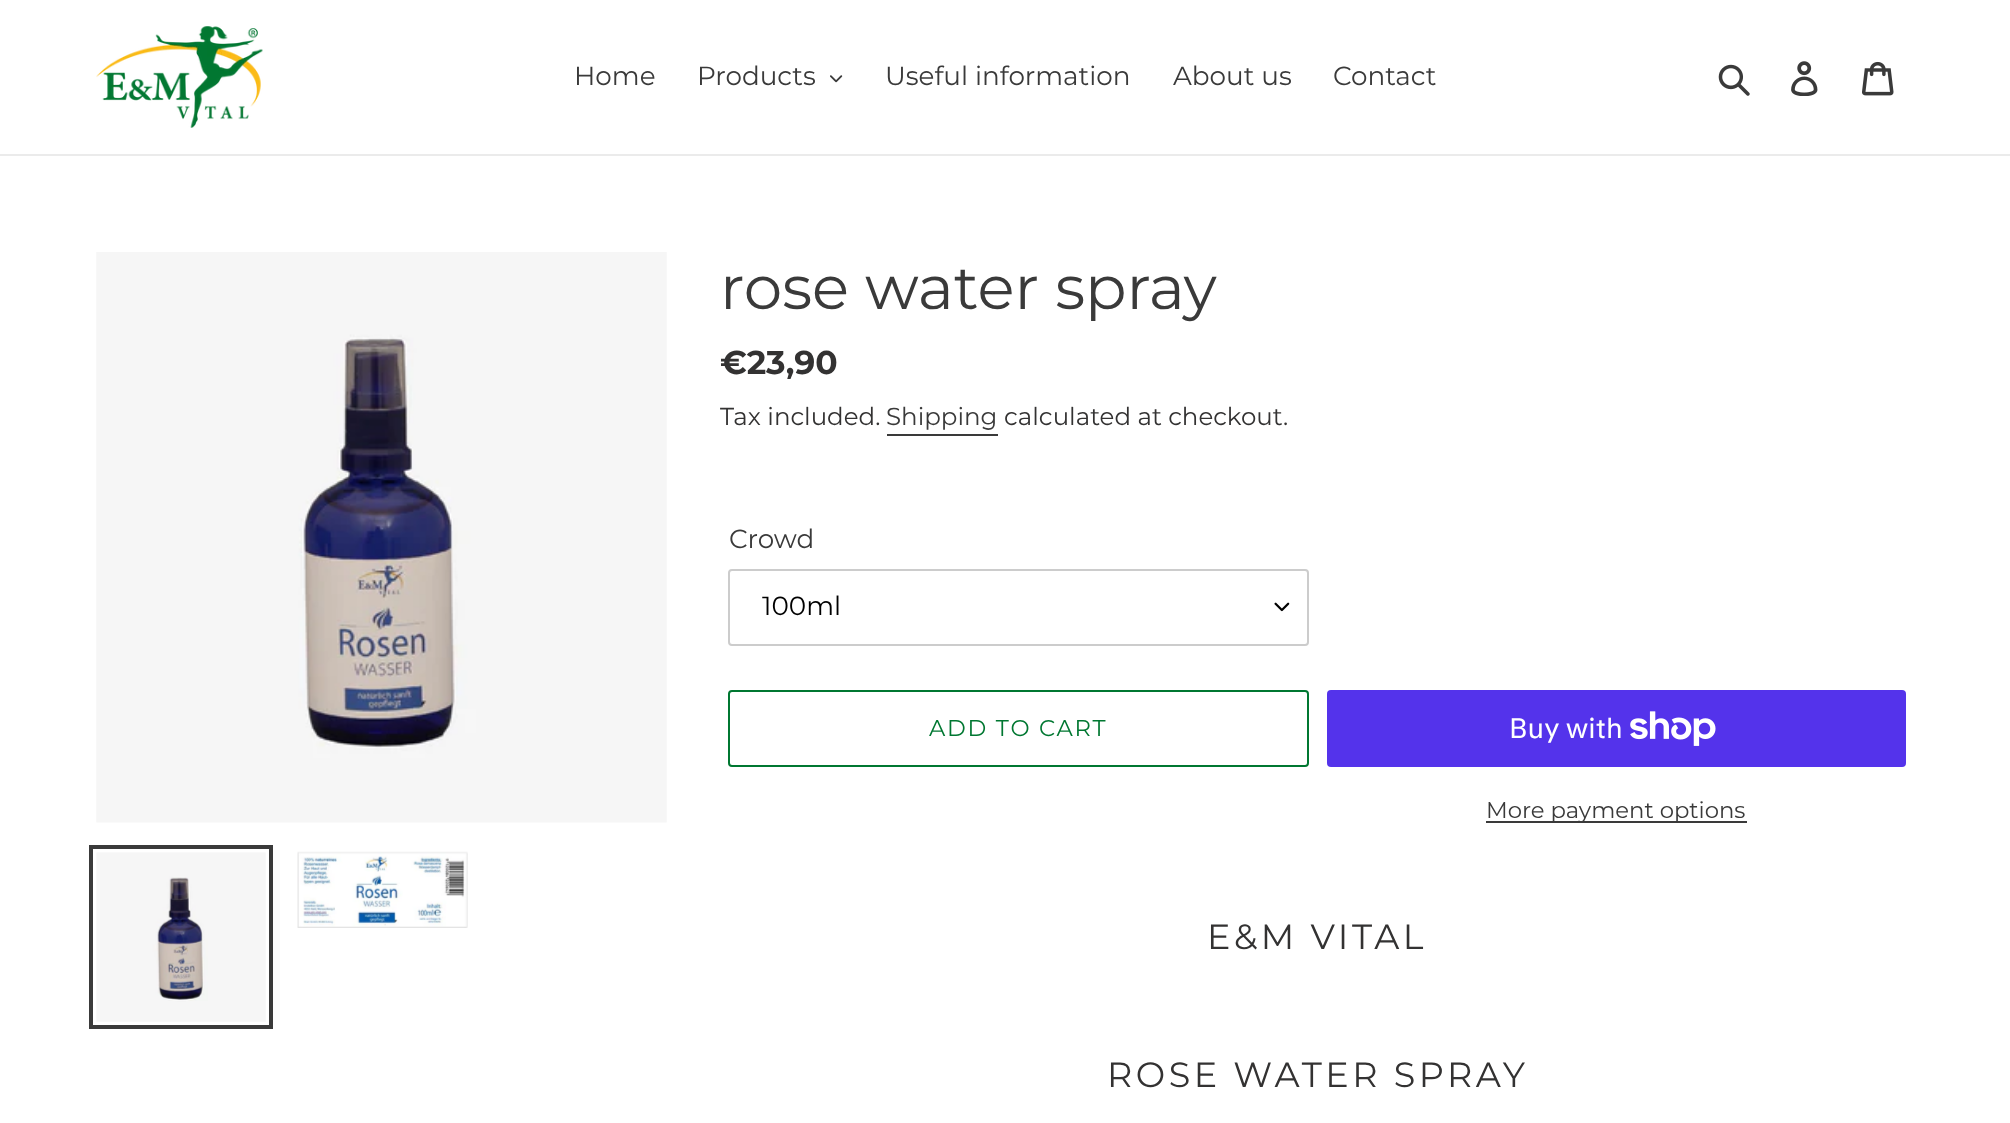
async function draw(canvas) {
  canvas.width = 2010;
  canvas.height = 1123;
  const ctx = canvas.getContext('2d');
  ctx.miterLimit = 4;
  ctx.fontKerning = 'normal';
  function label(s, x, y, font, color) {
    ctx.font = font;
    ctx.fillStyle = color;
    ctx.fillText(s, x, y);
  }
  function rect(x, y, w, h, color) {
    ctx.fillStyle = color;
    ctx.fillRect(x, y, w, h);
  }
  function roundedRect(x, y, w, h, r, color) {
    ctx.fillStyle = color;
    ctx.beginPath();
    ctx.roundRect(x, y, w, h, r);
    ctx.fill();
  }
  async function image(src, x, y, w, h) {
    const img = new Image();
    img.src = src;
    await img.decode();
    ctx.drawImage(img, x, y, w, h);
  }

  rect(0, 0, 2010, 1123, '#fff');
  rect(0, 154, 2010, 2, '#ebebeb');
  await image('assets/img1.png', 96, 26, 167, 102);
  label('Home', 574, 85, '26.25px Montserrat', '#3a3a3a');
  label('Products', 697, 85, '26.25px Montserrat', '#3a3a3a');
  await image('assets/img2.png', 830, 75, 13, 8);
  label('Useful information', 885, 85, '26.25px Montserrat', '#3a3a3a');
  label('About us', 1173, 85, '26.25px Montserrat', '#3a3a3a');
  label('Contact', 1333, 85, '26.25px Montserrat', '#3a3a3a');
  await image('assets/img3.png', 1718, 64, 32, 32);
  await image('assets/img4.png', 1791, 61, 27, 35);
  await image('assets/img5.png', 1862, 61, 32, 35);
  await image('assets/img6.png', 96, 252, 571, 571);
  ctx.strokeStyle = '#3a3a3a';
  ctx.lineWidth = 4;
  ctx.strokeRect(91, 847, 180, 180);
  await image('assets/img7.png', 96, 852, 170, 170);
  await image('assets/img8.png', 297, 851, 171, 77);
  label('rose water spray', 720, 309, '61.25px Montserrat', '#3a3a3a');
  label('€23,90', 720, 374, 'bold 33px Montserrat', '#333232');
  label('Tax included.', 720, 425, '24.5px Montserrat', '#333232');
  label('Shipping', 886, 425, '24.5px Montserrat', '#3a3a3a');
  rect(887, 434, 111, 2, '#3a3a3a');
  label('calculated at checkout.', 1004, 425, '24.5px Montserrat', '#333232');
  label('Crowd', 729, 548, '26.25px Montserrat', '#3a3a3a');
  await image('assets/img9.png', 1274, 602, 16, 10);
  ctx.beginPath();
  ctx.roundRect(729, 570, 579, 75, 3);
  ctx.strokeStyle = '#ccc';
  ctx.lineWidth = 2;
  ctx.stroke();
  label('100ml', 762, 615, '26.25px Montserrat', '#000');
  ctx.beginPath();
  ctx.roundRect(729, 691, 579, 75, 3);
  ctx.strokeStyle = '#007731';
  ctx.stroke();
  ctx.letterSpacing = '1.75px';
  label('ADD TO CART', 929, 736, '22.75px Montserrat', '#007731');
  roundedRect(1327, 690, 579, 77, 4, '#5433eb');
  ctx.letterSpacing = '0px';
  label('Buy with', 1509, 738, '28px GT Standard', '#fff');
  await image('assets/img10.png', 1630, 711, 86, 35);
  rect(1486, 821, 261, 2, '#3a3a3a');
  label('More payment options', 1486, 818, '22.75px Montserrat', '#3a3a3a');
  ctx.letterSpacing = '3.5px';
  label('E&M VITAL', 1207, 949, '35px Montserrat', '#333232');
  label('ROSE WATER SPRAY', 1107, 1087, '35px Montserrat', '#333232');
}

draw(document.querySelector('canvas'));
